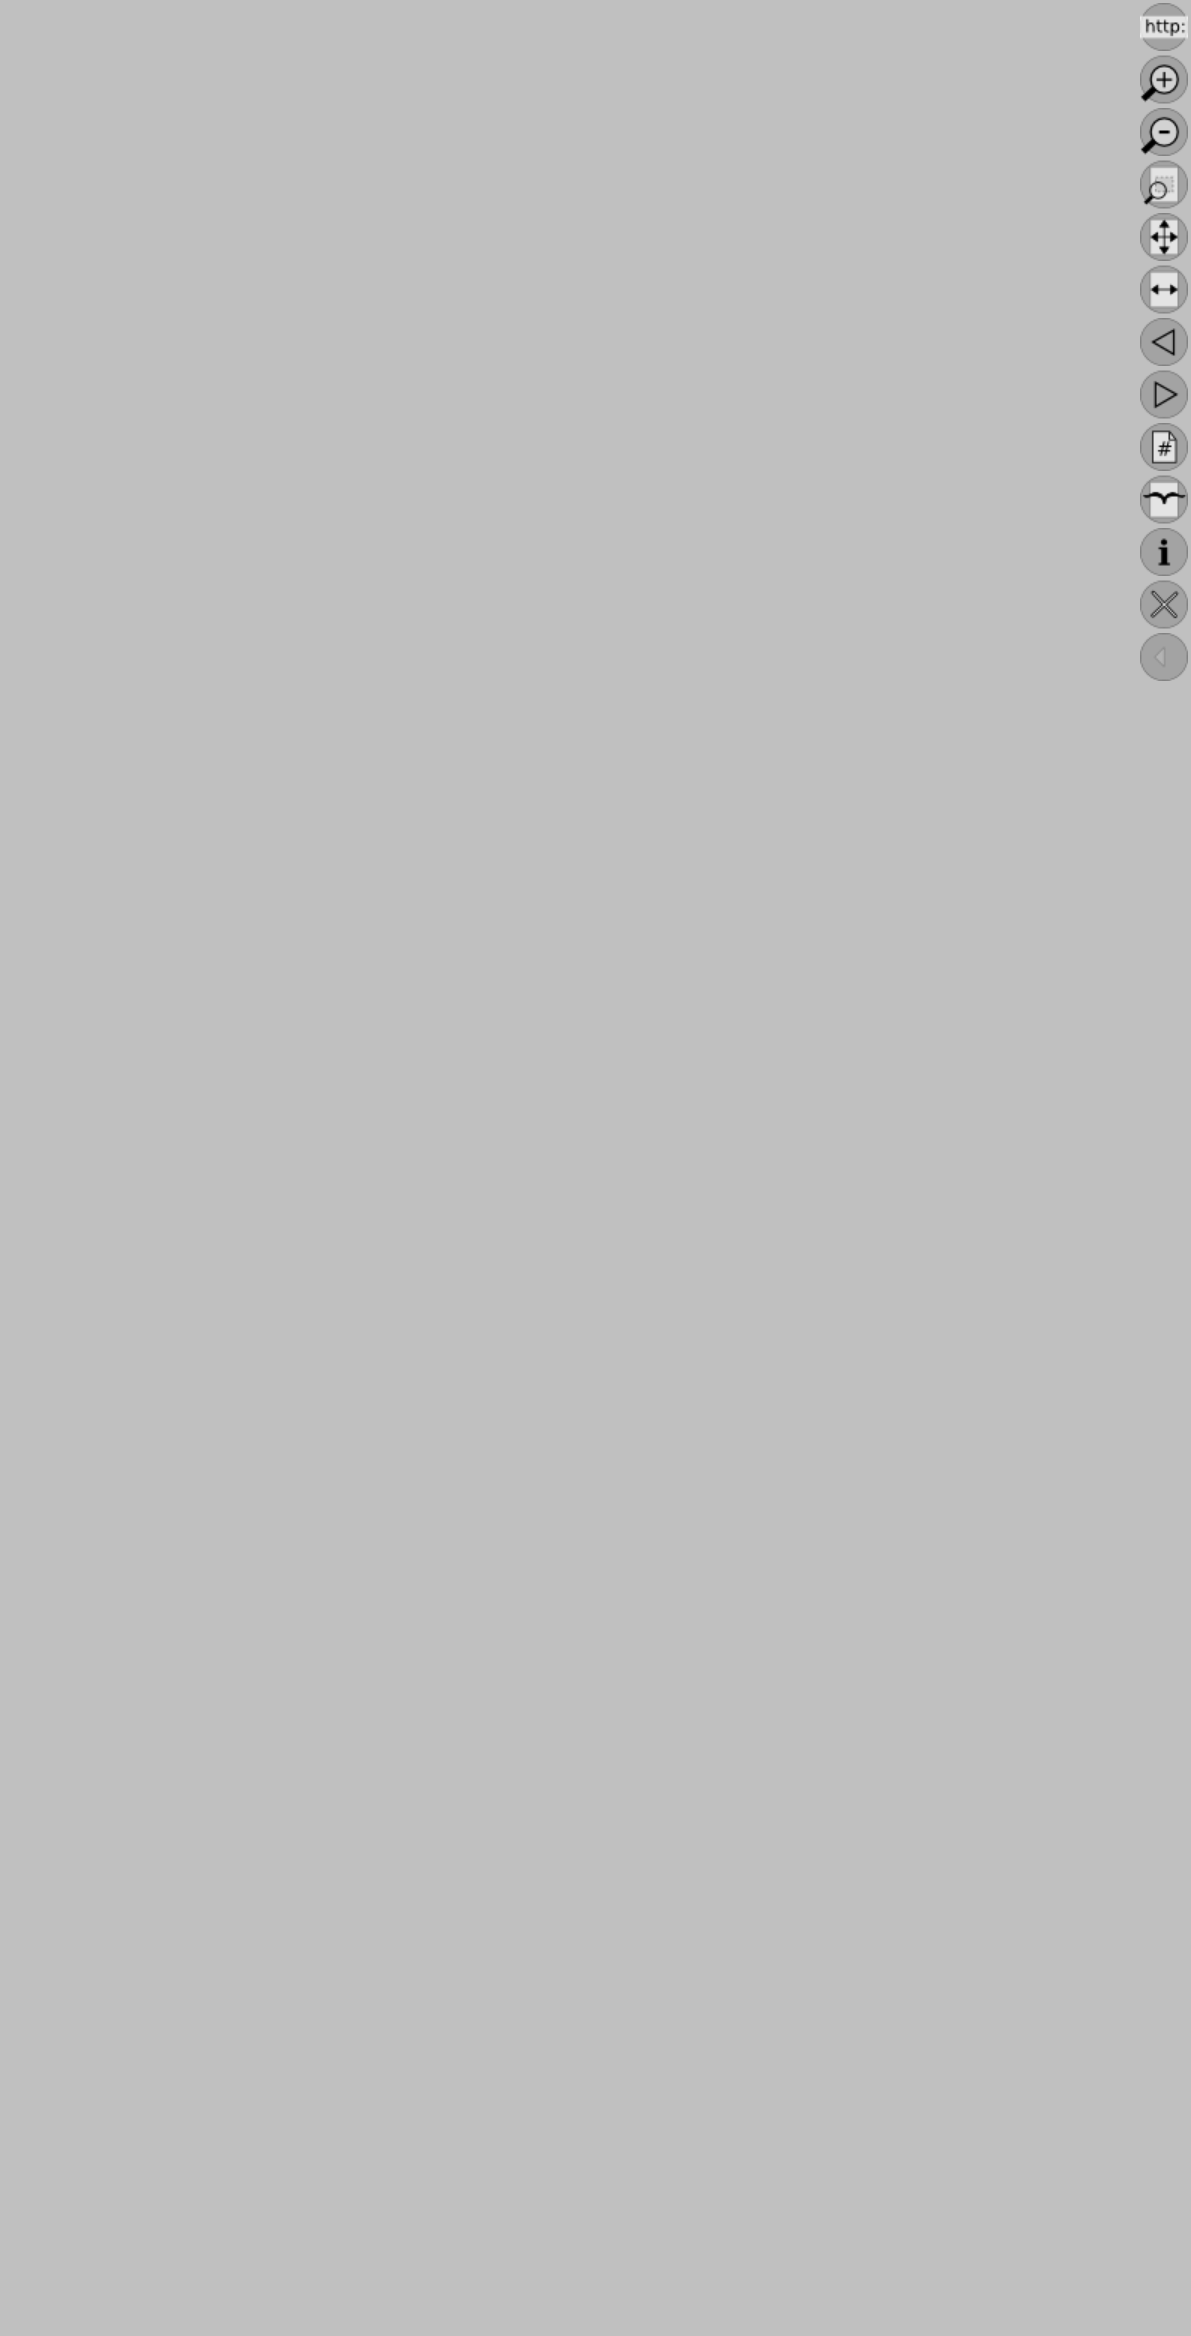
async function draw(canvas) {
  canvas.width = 1191;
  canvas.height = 2336;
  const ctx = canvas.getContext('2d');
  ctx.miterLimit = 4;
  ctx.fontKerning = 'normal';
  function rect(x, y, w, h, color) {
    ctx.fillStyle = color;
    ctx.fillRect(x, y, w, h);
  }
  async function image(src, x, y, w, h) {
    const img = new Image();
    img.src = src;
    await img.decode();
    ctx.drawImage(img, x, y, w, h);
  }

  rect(0, 0, 1191, 2336, '#c0c0c0');
  await image('assets/img1.png', 1140, 3, 48, 48);
  await image('assets/img2.png', 1140, 55, 48, 49);
  await image('assets/img3.png', 1140, 108, 48, 48);
  await image('assets/img4.png', 1140, 160, 48, 49);
  await image('assets/img5.png', 1140, 213, 48, 48);
  await image('assets/img6.png', 1140, 265, 48, 49);
  await image('assets/img7.png', 1140, 318, 48, 48);
  await image('assets/img8.png', 1140, 370, 48, 49);
  await image('assets/img9.png', 1140, 423, 48, 48);
  await image('assets/img10.png', 1140, 475, 48, 49);
  await image('assets/img11.png', 1140, 528, 48, 48);
  await image('assets/img12.png', 1140, 580, 48, 49);
  await image('assets/img13.png', 1140, 633, 48, 48);
}

draw(document.querySelector('canvas'));
